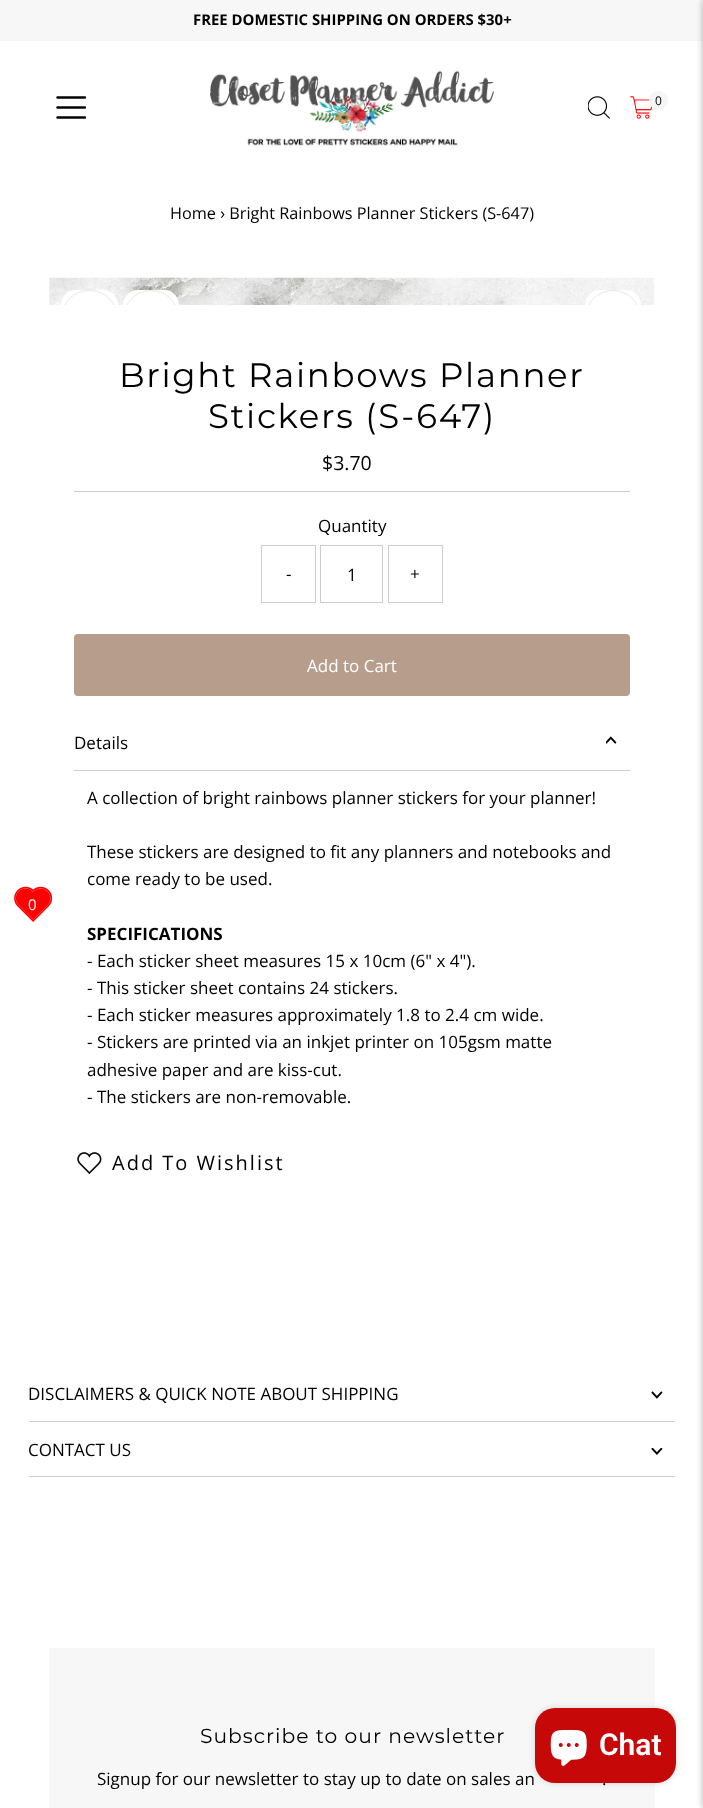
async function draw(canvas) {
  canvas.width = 703;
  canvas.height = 1808;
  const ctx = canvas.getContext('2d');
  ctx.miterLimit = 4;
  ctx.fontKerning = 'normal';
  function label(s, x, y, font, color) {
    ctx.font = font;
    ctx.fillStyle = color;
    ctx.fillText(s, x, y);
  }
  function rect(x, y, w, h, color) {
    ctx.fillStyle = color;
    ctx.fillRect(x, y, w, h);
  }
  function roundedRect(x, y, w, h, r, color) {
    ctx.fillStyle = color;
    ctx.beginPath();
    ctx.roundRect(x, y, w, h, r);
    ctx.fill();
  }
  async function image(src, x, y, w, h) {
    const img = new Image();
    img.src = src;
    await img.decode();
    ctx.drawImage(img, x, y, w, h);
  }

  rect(0, 0, 703, 1808, '#fff');
  rect(0, 0, 703, 41, '#f7f7f7');
  label('FREE DOMESTIC SHIPPING ON ORDERS $30+', 193, 25, 'bold 14.9px Open Sans', '#000');
  await image('assets/img1.png', 56, 96, 30, 23);
  await image('assets/img2.png', 210, 70, 284, 76);
  await image('assets/img3.png', 588, 96, 22, 23);
  await image('assets/img4.png', 630, 96, 23, 23);
  ctx.fillStyle = '#f5f5f5';
  ctx.beginPath();
  ctx.arc(658.5, 100.5, 9.5, 0, 2 * Math.PI);
  ctx.fill();
  label('0', 655, 105, '12px Open Sans', '#000');
  label('Home › Bright Rainbows Planner Stickers (S-647)', 170, 219, '16.25px Open Sans', '#000');
  await image('assets/img5.png', 49, 277, 606, 28);
  ctx.fillStyle = '#fff';
  ctx.beginPath();
  ctx.roundRect(585, 290, 56, 15, [28, 28, 0, 0]);
  ctx.fill();
  ctx.save();
  ctx.beginPath();
  ctx.rect(49, 278, 606, 27);
  ctx.clip();
  ctx.beginPath();
  ctx.arc(613, 318, 27.5, 0, 2 * Math.PI);
  ctx.strokeStyle = '#e7e7e7';
  ctx.stroke();
  ctx.restore();
  ctx.beginPath();
  ctx.roundRect(61, 290, 57, 15, [28, 28, 0, 0]);
  ctx.fill();
  ctx.save();
  ctx.beginPath();
  ctx.rect(49, 278, 606, 27);
  ctx.clip();
  ctx.beginPath();
  ctx.roundRect(61.5, 290.5, 56, 55, 27.5);
  ctx.strokeStyle = '#e7e7e7';
  ctx.stroke();
  ctx.restore();
  ctx.beginPath();
  ctx.roundRect(123, 290, 56, 15, [28, 28, 0, 0]);
  ctx.fill();
  ctx.save();
  ctx.beginPath();
  ctx.rect(49, 278, 606, 27);
  ctx.clip();
  ctx.beginPath();
  ctx.arc(151, 318, 27.5, 0, 2 * Math.PI);
  ctx.strokeStyle = '#e7e7e7';
  ctx.stroke();
  ctx.restore();
  rect(74, 491, 556, 1, '#ccc');
  ctx.letterSpacing = '1.7px';
  label('Bright Rainbows Planner', 119, 387, '34px Montserrat', '#000');
  label('Stickers (S-647)', 208, 428, '34px Montserrat', '#000');
  ctx.letterSpacing = '0px';
  label('$3.70', 322, 470, '19.5px Open Sans', '#000');
  label('Quantity', 318, 532, '17px Open Sans', '#000');
  ctx.strokeStyle = '#ccc';
  ctx.strokeRect(261.5, 545.5, 54, 57);
  label('-', 286, 580, '17px Open Sans', '#000');
  ctx.strokeRect(320.5, 545.5, 62, 57);
  label('1', 347, 581, '17px Open Sans', '#000');
  ctx.strokeRect(388.5, 545.5, 54, 57);
  label('+', 410, 580, '17px Open Sans', '#000');
  roundedRect(74, 634, 556, 62, 4, '#b79e8c');
  label('Add to Cart', 307, 672, '17px Open Sans', '#fff');
  rect(74, 770, 556, 1, '#ccc');
  label('Details', 74, 749, '17px Open Sans', '#000');
  await image('assets/img6.png', 606, 736, 11, 8);
  label('A collection of bright rainbows planner stickers for your planner!', 87, 804, '17px Open Sans', '#000');
  label('These stickers are designed to fit any planners and notebooks and', 87, 858, '17px Open Sans', '#000');
  label('come ready to be used.', 87, 885, '17px Open Sans', '#000');
  label('SPECIFICATIONS', 87, 940, 'bold 17px Open Sans', '#000');
  label('- Each sticker sheet measures 15 x 10cm (6" x 4").', 87, 967, '17px Open Sans', '#000');
  label('- This sticker sheet contains 24 stickers.', 87, 994, '17px Open Sans', '#000');
  label('- Each sticker measures approximately 1.8 to 2.4 cm wide.', 87, 1021, '17px Open Sans', '#000');
  label('- Stickers are printed via an inkjet printer on 105gsm matte', 87, 1048, '17px Open Sans', '#000');
  label('adhesive paper and are kiss-cut.', 87, 1076, '17px Open Sans', '#000');
  label('- The stickers are non-removable.', 87, 1103, '17px Open Sans', '#000');
  await image('assets/img7.png', 77, 1152, 25, 22);
  ctx.letterSpacing = '2px';
  label('Add To Wishlist', 112, 1170, '20px Open Sans', '#000');
  rect(29, 1421, 646, 1, '#ccc');
  ctx.letterSpacing = '0px';
  label('DISCLAIMERS & QUICK NOTE ABOUT SHIPPING', 28, 1400, '17px Open Sans', '#000');
  await image('assets/img8.png', 651, 1391, 12, 8);
  rect(29, 1476, 646, 1, '#ccc');
  label('CONTACT US', 28, 1456, '17px Open Sans', '#000');
  await image('assets/img9.png', 651, 1448, 12, 7);
  rect(49, 1648, 606, 160, '#f7f7f7');
  ctx.letterSpacing = '1px';
  label('Subscribe to our newsletter', 200, 1743, '20.25px Montserrat', '#000');
  ctx.letterSpacing = '0px';
  label('Signup for our newsletter to stay up to date on sales an', 97, 1785, '17px Open Sans', '#000');
  label('.', 602, 1785, '17px Open Sans', '#000');
  await image('assets/img10.png', 14, 886, 39, 36);
  label('0', 28, 910, '15px Open Sans', '#fff');
  ctx.fillStyle = '#00000080';
  ctx.filter = 'blur(4.5px)';
  ctx.beginPath();
  ctx.rect(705, 0, 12, 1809);
  ctx.fill();
  ctx.filter = 'none';
  ctx.fillStyle = '#00000026';
  ctx.filter = 'blur(3px)';
  ctx.beginPath();
  ctx.roundRect(535, 1708, 141, 75, 20);
  ctx.fill();
  ctx.filter = 'none';
  roundedRect(535, 1708, 141, 75, 20, '#c60808');
  await image('assets/img11.png', 550, 1730, 37, 36);
  label('Chat', 599, 1755, '600 30px Roboto', '#fff');
}

draw(document.querySelector('canvas'));
